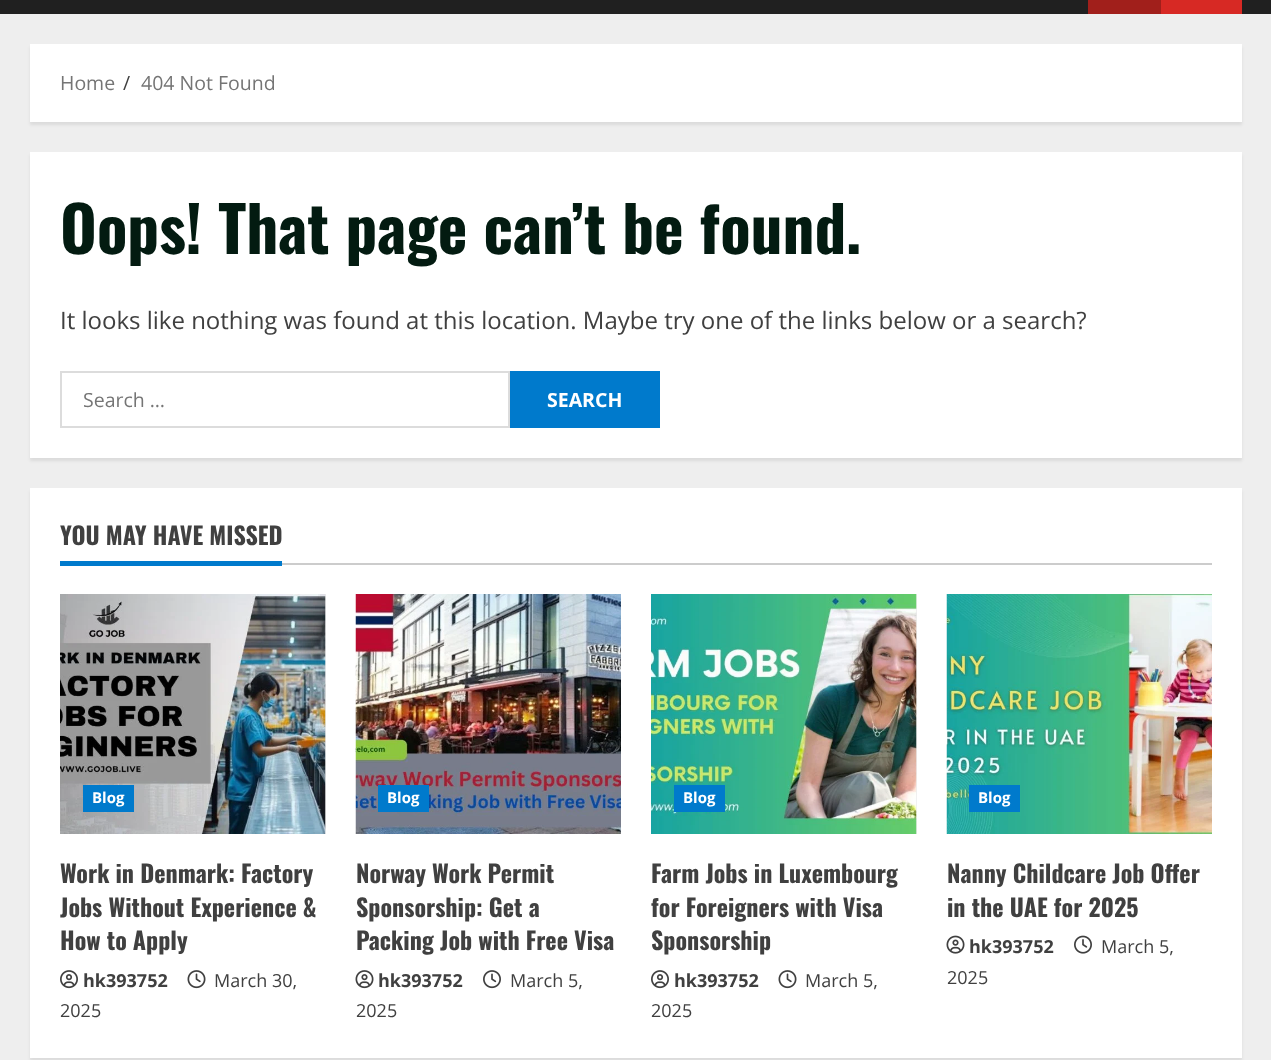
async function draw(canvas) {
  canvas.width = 1271;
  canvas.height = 1060;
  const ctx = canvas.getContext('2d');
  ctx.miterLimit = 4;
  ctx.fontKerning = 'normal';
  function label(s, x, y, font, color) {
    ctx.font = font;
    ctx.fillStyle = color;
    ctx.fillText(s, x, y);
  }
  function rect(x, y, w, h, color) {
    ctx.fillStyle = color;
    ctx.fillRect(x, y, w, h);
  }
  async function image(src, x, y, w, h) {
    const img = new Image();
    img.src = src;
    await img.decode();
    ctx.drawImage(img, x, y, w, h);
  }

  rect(0, 0, 1271, 1060, '#eee');
  rect(0, 0, 1271, 14, '#202020');
  rect(1161, 0, 81, 14, '#d72924');
  rect(1088, 0, 73, 14, '#a11f1b');
  ctx.fillStyle = '#00000014';
  ctx.filter = 'blur(1.5px)';
  ctx.beginPath();
  ctx.rect(30, 47, 1212, 78);
  ctx.fill();
  ctx.filter = 'none';
  rect(30, 44, 1212, 78, '#fff');
  label('Home', 60, 90, '19.5px Open Sans', '#757575');
  label('/', 123, 90, '19.5px Open Sans', '#404040');
  label('404 Not Found', 141, 90, '19.5px Open Sans', '#757575');
  ctx.fillStyle = '#00000014';
  ctx.filter = 'blur(1.5px)';
  ctx.beginPath();
  ctx.rect(30, 155, 1212, 306);
  ctx.fill();
  ctx.filter = 'none';
  rect(30, 152, 1212, 306, '#fff');
  label('Oops! That page can’t be found.', 60, 254, 'bold 63px Oswald', '#031b11');
  label('It looks like nothing was found at this location. Maybe try one of the links below or a search?', 60, 329, '24px Open Sans', '#404040');
  ctx.strokeStyle = '#dcdcdc';
  ctx.lineWidth = 2;
  ctx.strokeRect(61, 372, 448, 55);
  label('Search …', 83, 407, '19.5px Open Sans', '#757575');
  rect(510, 371, 150, 57, '#007acc');
  label('SEARCH', 547, 407, 'bold 19.5px Open Sans', '#fff');
  ctx.fillStyle = '#00000014';
  ctx.filter = 'blur(1.5px)';
  ctx.beginPath();
  ctx.rect(30, 491, 1212, 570);
  ctx.fill();
  ctx.filter = 'none';
  rect(30, 488, 1212, 570, '#fff');
  rect(282, 563, 930, 2, '#ccc');
  label('YOU MAY HAVE MISSED', 60, 545, 'bold 24px Oswald', '#404040');
  rect(60, 561, 222, 5, '#007acc');
  rect(325, 594, 1, 240, '#ececec');
  await image('assets/img1.png', 60, 594, 266, 240);
  rect(83, 785, 51, 27, '#007acc');
  label('Blog', 92, 803, 'bold 15px Open Sans', '#fff');
  label('Work in Denmark: Factory', 60, 883, 'bold 24px Oswald', '#404040');
  label('Jobs Without Experience &', 60, 917, 'bold 24px Oswald', '#404040');
  label('How to Apply', 60, 950, 'bold 24px Oswald', '#404040');
  await image('assets/img2.png', 60, 970, 18, 19);
  label('hk393752', 83, 987, 'bold 18px Open Sans', '#404040');
  await image('assets/img3.png', 187, 970, 19, 19);
  label('March 30,', 214, 987, '18px Open Sans', '#404040');
  label('2025', 60, 1017, '18px Open Sans', '#404040');
  await image('assets/img4.png', 355, 594, 266, 240);
  rect(378, 785, 51, 27, '#007acc');
  label('Blog', 387, 803, 'bold 15px Open Sans', '#fff');
  label('Norway Work Permit', 356, 883, 'bold 24px Oswald', '#404040');
  label('Sponsorship: Get a', 356, 917, 'bold 24px Oswald', '#404040');
  label('Packing Job with Free Visa', 356, 950, 'bold 24px Oswald', '#404040');
  await image('assets/img5.png', 355, 970, 19, 19);
  label('hk393752', 378, 987, 'bold 18px Open Sans', '#404040');
  await image('assets/img6.png', 483, 970, 18, 19);
  label('March 5,', 510, 987, '18px Open Sans', '#404040');
  label('2025', 356, 1017, '18px Open Sans', '#404040');
  rect(916, 594, 1, 240, '#ececec');
  await image('assets/img7.png', 651, 594, 266, 240);
  rect(674, 785, 51, 27, '#007acc');
  label('Blog', 683, 803, 'bold 15px Open Sans', '#fff');
  label('Farm Jobs in Luxembourg', 651, 883, 'bold 24px Oswald', '#404040');
  label('for Foreigners with Visa', 651, 917, 'bold 24px Oswald', '#404040');
  label('Sponsorship', 651, 950, 'bold 24px Oswald', '#404040');
  await image('assets/img2.png', 651, 970, 18, 19);
  label('hk393752', 674, 987, 'bold 18px Open Sans', '#404040');
  await image('assets/img3.png', 778, 970, 19, 19);
  label('March 5,', 805, 987, '18px Open Sans', '#404040');
  label('2025', 651, 1017, '18px Open Sans', '#404040');
  await image('assets/img8.png', 946, 594, 266, 240);
  rect(969, 785, 51, 27, '#007acc');
  label('Blog', 978, 803, 'bold 15px Open Sans', '#fff');
  label('Nanny Childcare Job Offer', 947, 883, 'bold 24px Oswald', '#404040');
  label('in the UAE for 2025', 947, 917, 'bold 24px Oswald', '#404040');
  await image('assets/img9.png', 946, 935, 19, 19);
  label('hk393752', 969, 953, 'bold 18px Open Sans', '#404040');
  await image('assets/img10.png', 1074, 935, 18, 19);
  label('March 5,', 1101, 953, '18px Open Sans', '#404040');
  label('2025', 947, 984, '18px Open Sans', '#404040');
}

draw(document.querySelector('canvas'));
